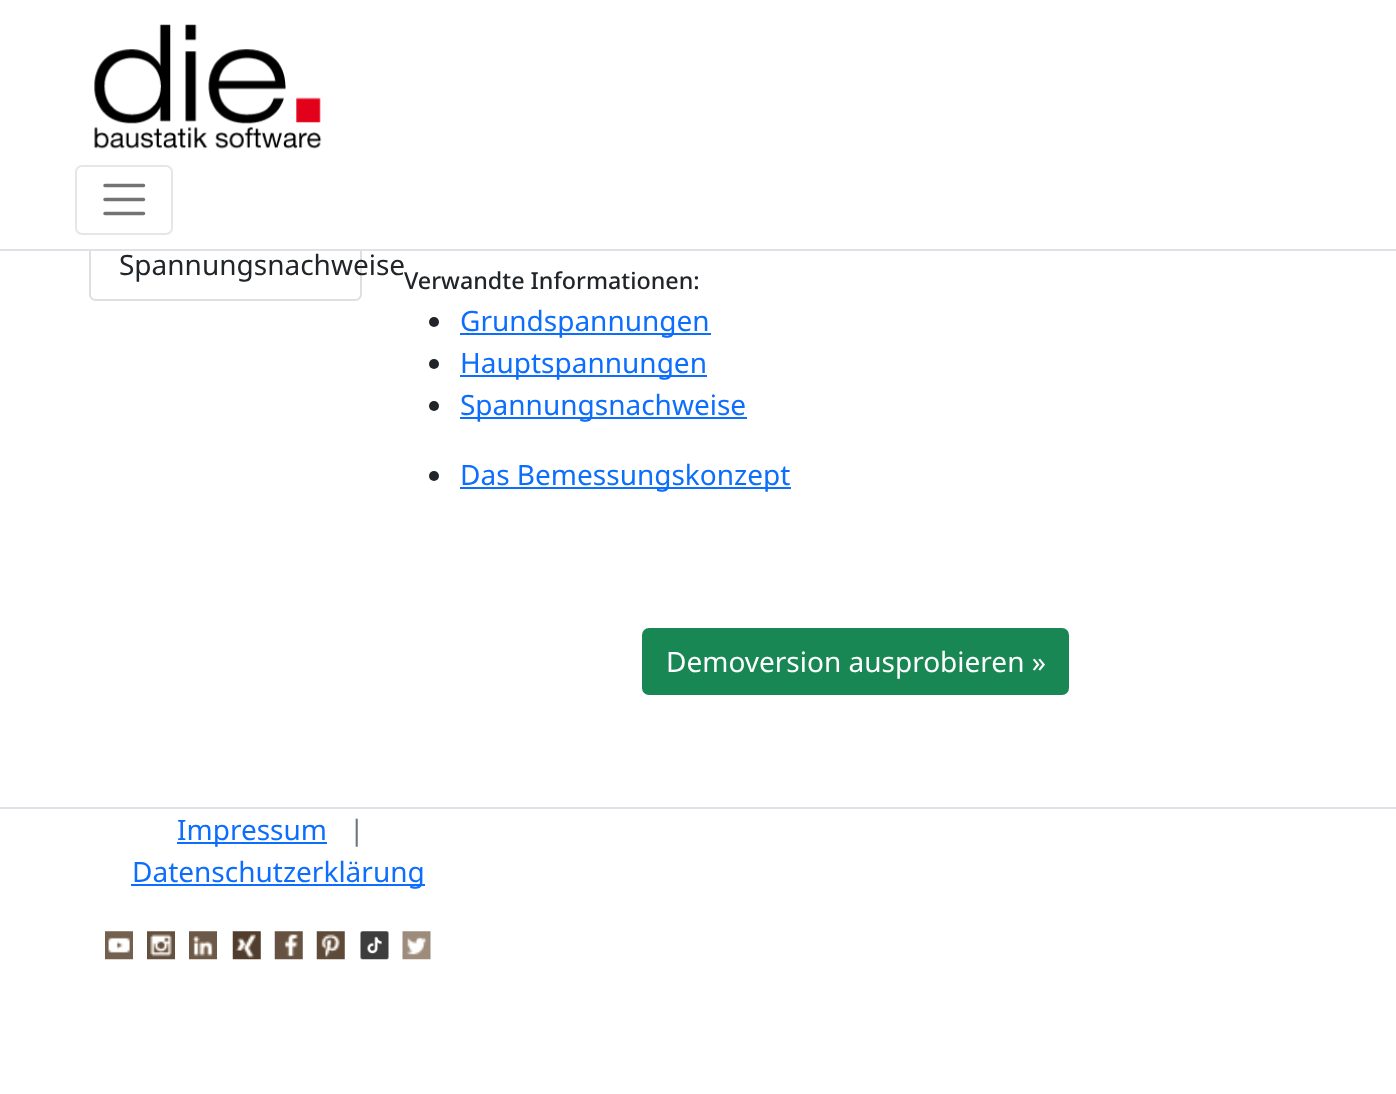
async function draw(canvas) {
  canvas.width = 1396;
  canvas.height = 1094;
  const ctx = canvas.getContext('2d');
  ctx.miterLimit = 4;
  ctx.fontKerning = 'normal';
  function label(s, x, y, font, color) {
    ctx.font = font;
    ctx.fillStyle = color;
    ctx.fillText(s, x, y);
  }
  function rect(x, y, w, h, color) {
    ctx.fillStyle = color;
    ctx.fillRect(x, y, w, h);
  }
  async function image(src, x, y, w, h) {
    const img = new Image();
    img.src = src;
    await img.decode();
    ctx.drawImage(img, x, y, w, h);
  }
  let path;

  rect(0, 0, 1396, 1094, '#fff');
  ctx.fillStyle = '#dfdfdf';
  path = new Path2D('M89 229H362V294C362 298 359 301 355 301H96C92 301 89 298 89 294ZM91 229H360V294C360 297 358 299 355 299H96C93 299 91 297 91 294Z');
  ctx.fill(path, 'evenodd');
  rect(89, 229, 273, 20, '#fff');
  rect(0, 249, 1396, 2, '#dee2e6');
  await image('assets/img1.png', 94, 24, 228, 125);
  ctx.beginPath();
  ctx.roundRect(76, 166, 96, 68, 6);
  ctx.strokeStyle = '#e6e6e6';
  ctx.lineWidth = 2;
  ctx.stroke();
  path = new Path2D('M105 185.5H143.5M105 199.5H143.5M105 213.5H143.5');
  ctx.strokeStyle = '#737373';
  ctx.lineWidth = 3.5;
  ctx.lineCap = 'round';
  ctx.stroke(path);
  label('Spannungsnachweise', 119, 275, '28px Noto Sans', '#212529');
  label('Verwandte Informationen:', 404, 289, '500 23.3px Noto Sans', '#212529');
  ctx.beginPath();
  ctx.arc(434, 322, 5, 0, 2 * Math.PI);
  ctx.fill();
  rect(460, 333, 251, 2, '#0d6efd');
  label('Grundspannungen', 460, 331, '28px Noto Sans', '#0d6efd');
  ctx.fillStyle = '#212529';
  ctx.beginPath();
  ctx.arc(434, 364, 5, 0, 2 * Math.PI);
  ctx.fill();
  rect(460, 375, 247, 2, '#0d6efd');
  label('Hauptspannungen', 460, 373, '28px Noto Sans', '#0d6efd');
  ctx.fillStyle = '#212529';
  ctx.beginPath();
  ctx.arc(434, 406, 5, 0, 2 * Math.PI);
  ctx.fill();
  rect(460, 417, 287, 2, '#0d6efd');
  label('Spannungsnachweise', 460, 415, '28px Noto Sans', '#0d6efd');
  ctx.fillStyle = '#212529';
  ctx.beginPath();
  ctx.arc(434, 476, 5, 0, 2 * Math.PI);
  ctx.fill();
  rect(460, 487, 331, 2, '#0d6efd');
  label('Das Bemessungskonzept', 460, 485, '28px Noto Sans', '#0d6efd');
  ctx.fillStyle = '#198754';
  ctx.beginPath();
  ctx.roundRect(643, 629, 425, 65, 6);
  ctx.fill();
  ctx.strokeStyle = '#198754';
  ctx.lineWidth = 2;
  ctx.stroke();
  label('Demoversion ausprobieren »', 666, 672, '28px Noto Sans', '#fff');
  rect(0, 807, 1396, 2, '#dee2e6');
  rect(177, 842, 150, 2, '#0d6efd');
  label('Impressum', 177, 840, '28px Noto Sans', '#0d6efd');
  label('|', 349, 840, '28px Noto Sans', '#6c757d');
  rect(131, 884, 294, 2, '#0d6efd');
  label('Datenschutzerklärung', 132, 882, '28px Noto Sans', '#0d6efd');
  await image('assets/img2.png', 105, 931, 28, 29);
  await image('assets/img3.png', 147, 931, 28, 29);
  await image('assets/img4.png', 189, 931, 28, 29);
  await image('assets/img5.png', 232, 931, 29, 29);
  await image('assets/img6.png', 274, 931, 29, 29);
  await image('assets/img7.png', 316, 931, 29, 29);
  await image('assets/img8.png', 360, 931, 29, 29);
  await image('assets/img9.png', 402, 931, 29, 29);
}

draw(document.querySelector('canvas'));
